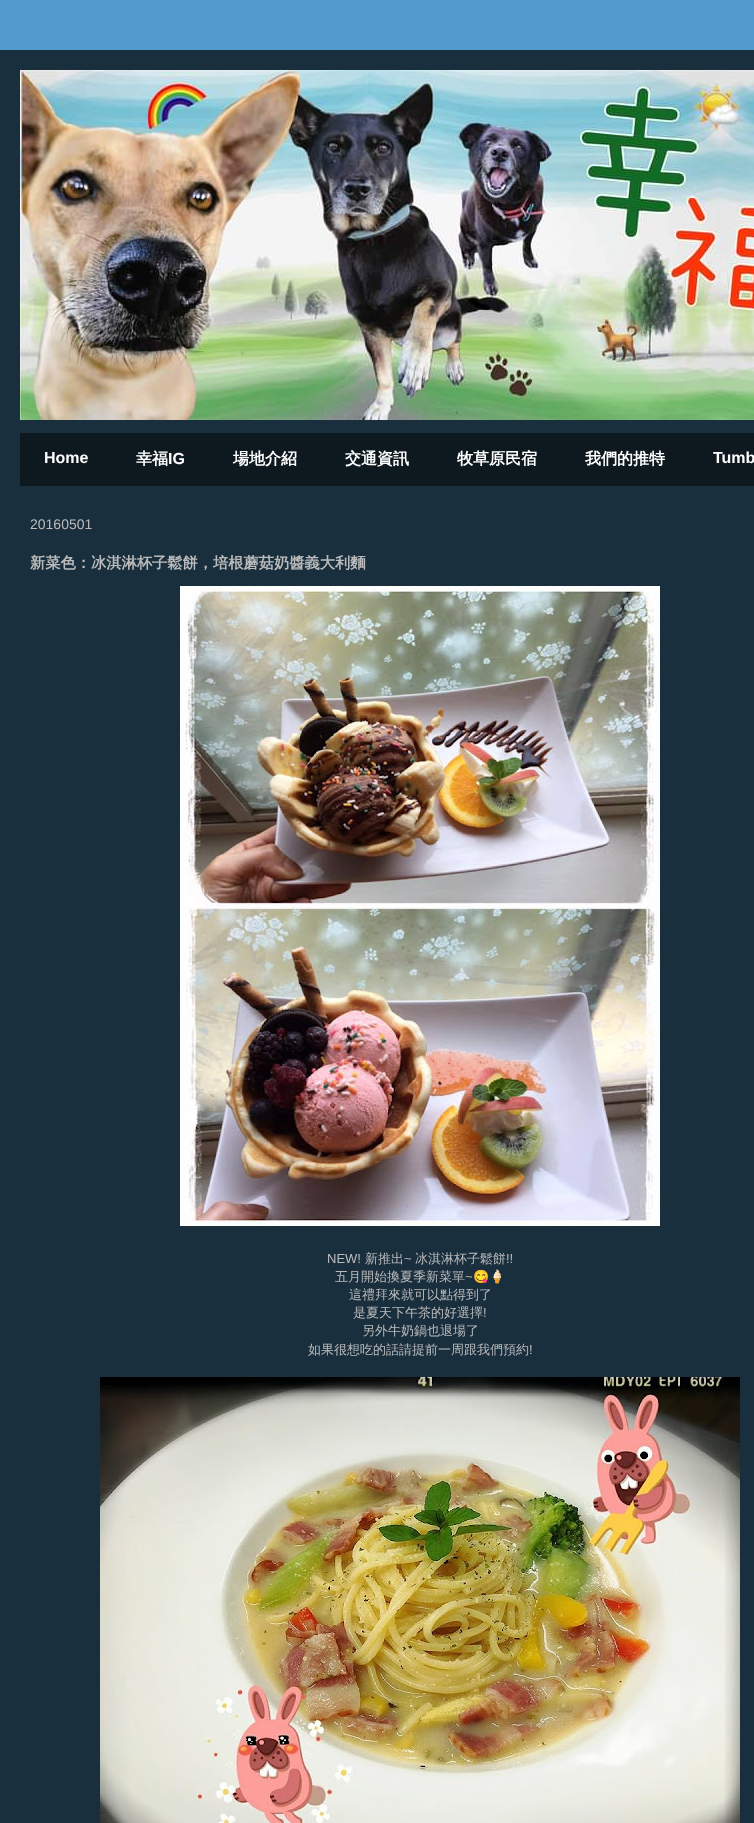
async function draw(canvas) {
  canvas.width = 754;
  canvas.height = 1823;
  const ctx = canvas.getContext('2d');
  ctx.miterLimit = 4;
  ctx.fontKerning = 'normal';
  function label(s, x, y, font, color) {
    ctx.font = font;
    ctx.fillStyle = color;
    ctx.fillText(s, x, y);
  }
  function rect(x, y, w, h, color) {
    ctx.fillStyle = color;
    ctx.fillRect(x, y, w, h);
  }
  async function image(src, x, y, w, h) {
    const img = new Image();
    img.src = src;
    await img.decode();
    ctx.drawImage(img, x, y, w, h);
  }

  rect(0, 0, 754, 1823, '#539bcd');
  rect(0, 50, 754, 1773, '#192f3e');
  await image('assets/img1.png', 20, 70, 734, 350);
  rect(20, 433, 734, 53, '#0d181f');
  label('Home', 44, 463, 'bold 16px Liberation Sans', '#fff');
  label('幸福', 136, 464, 'bold 16px WenQuanYi Zen Hei', '#fff');
  label('IG', 168, 464, 'bold 16px Liberation Sans', '#fff');
  label('場地介紹', 233, 464, 'bold 16px WenQuanYi Zen Hei', '#fff');
  label('交通資訊', 345, 464, 'bold 16px WenQuanYi Zen Hei', '#fff');
  label('牧草原民宿', 457, 464, 'bold 16px WenQuanYi Zen Hei', '#fff');
  label('我們的推特', 585, 464, 'bold 16px WenQuanYi Zen Hei', '#fff');
  label('Tumb', 713, 463, 'bold 16px Liberation Sans', '#fff');
  label('20160501', 30, 529, '14px Liberation Sans', '#bbb');
  label('新菜色：冰淇淋杯子鬆餅，培根蘑菇奶醬義大利麵', 30, 568, 'bold 15.25px WenQuanYi Zen Hei', '#bbb');
  await image('assets/img2.png', 180, 586, 480, 640);
  label('NEW!', 327, 1263, '13px Liberation Sans', '#bbb');
  label('新推出', 365, 1263, '500 13px WenQuanYi Zen Hei', '#bbb');
  label('~', 404, 1263, '13px Liberation Sans', '#bbb');
  label('冰淇淋杯子鬆餅', 415, 1263, '500 13px WenQuanYi Zen Hei', '#bbb');
  label('!!', 506, 1263, '13px Liberation Sans', '#bbb');
  label('五月開始換夏季新菜單', 335, 1281, '500 13px WenQuanYi Zen Hei', '#bbb');
  label('~', 465, 1281, '13px Liberation Sans', '#bbb');
  label('😋🍦', 473, 1281, '13px Noto Color Emoji', '#bbb');
  label('這禮拜來就可以點得到了', 349, 1299, '500 13px WenQuanYi Zen Hei', '#bbb');
  label('是夏天下午茶的好選擇', 353, 1317, '500 13px WenQuanYi Zen Hei', '#bbb');
  label('!', 483, 1317, '13px Liberation Sans', '#bbb');
  label('另外牛奶鍋也退場了', 362, 1335, '500 13px WenQuanYi Zen Hei', '#bbb');
  label('如果很想吃的話請提前一周跟我們預約', 308, 1354, '500 13px WenQuanYi Zen Hei', '#bbb');
  label('!', 529, 1354, '13px Liberation Sans', '#bbb');
  await image('assets/img3.png', 100, 1377, 640, 446);
}

draw(document.querySelector('canvas'));
